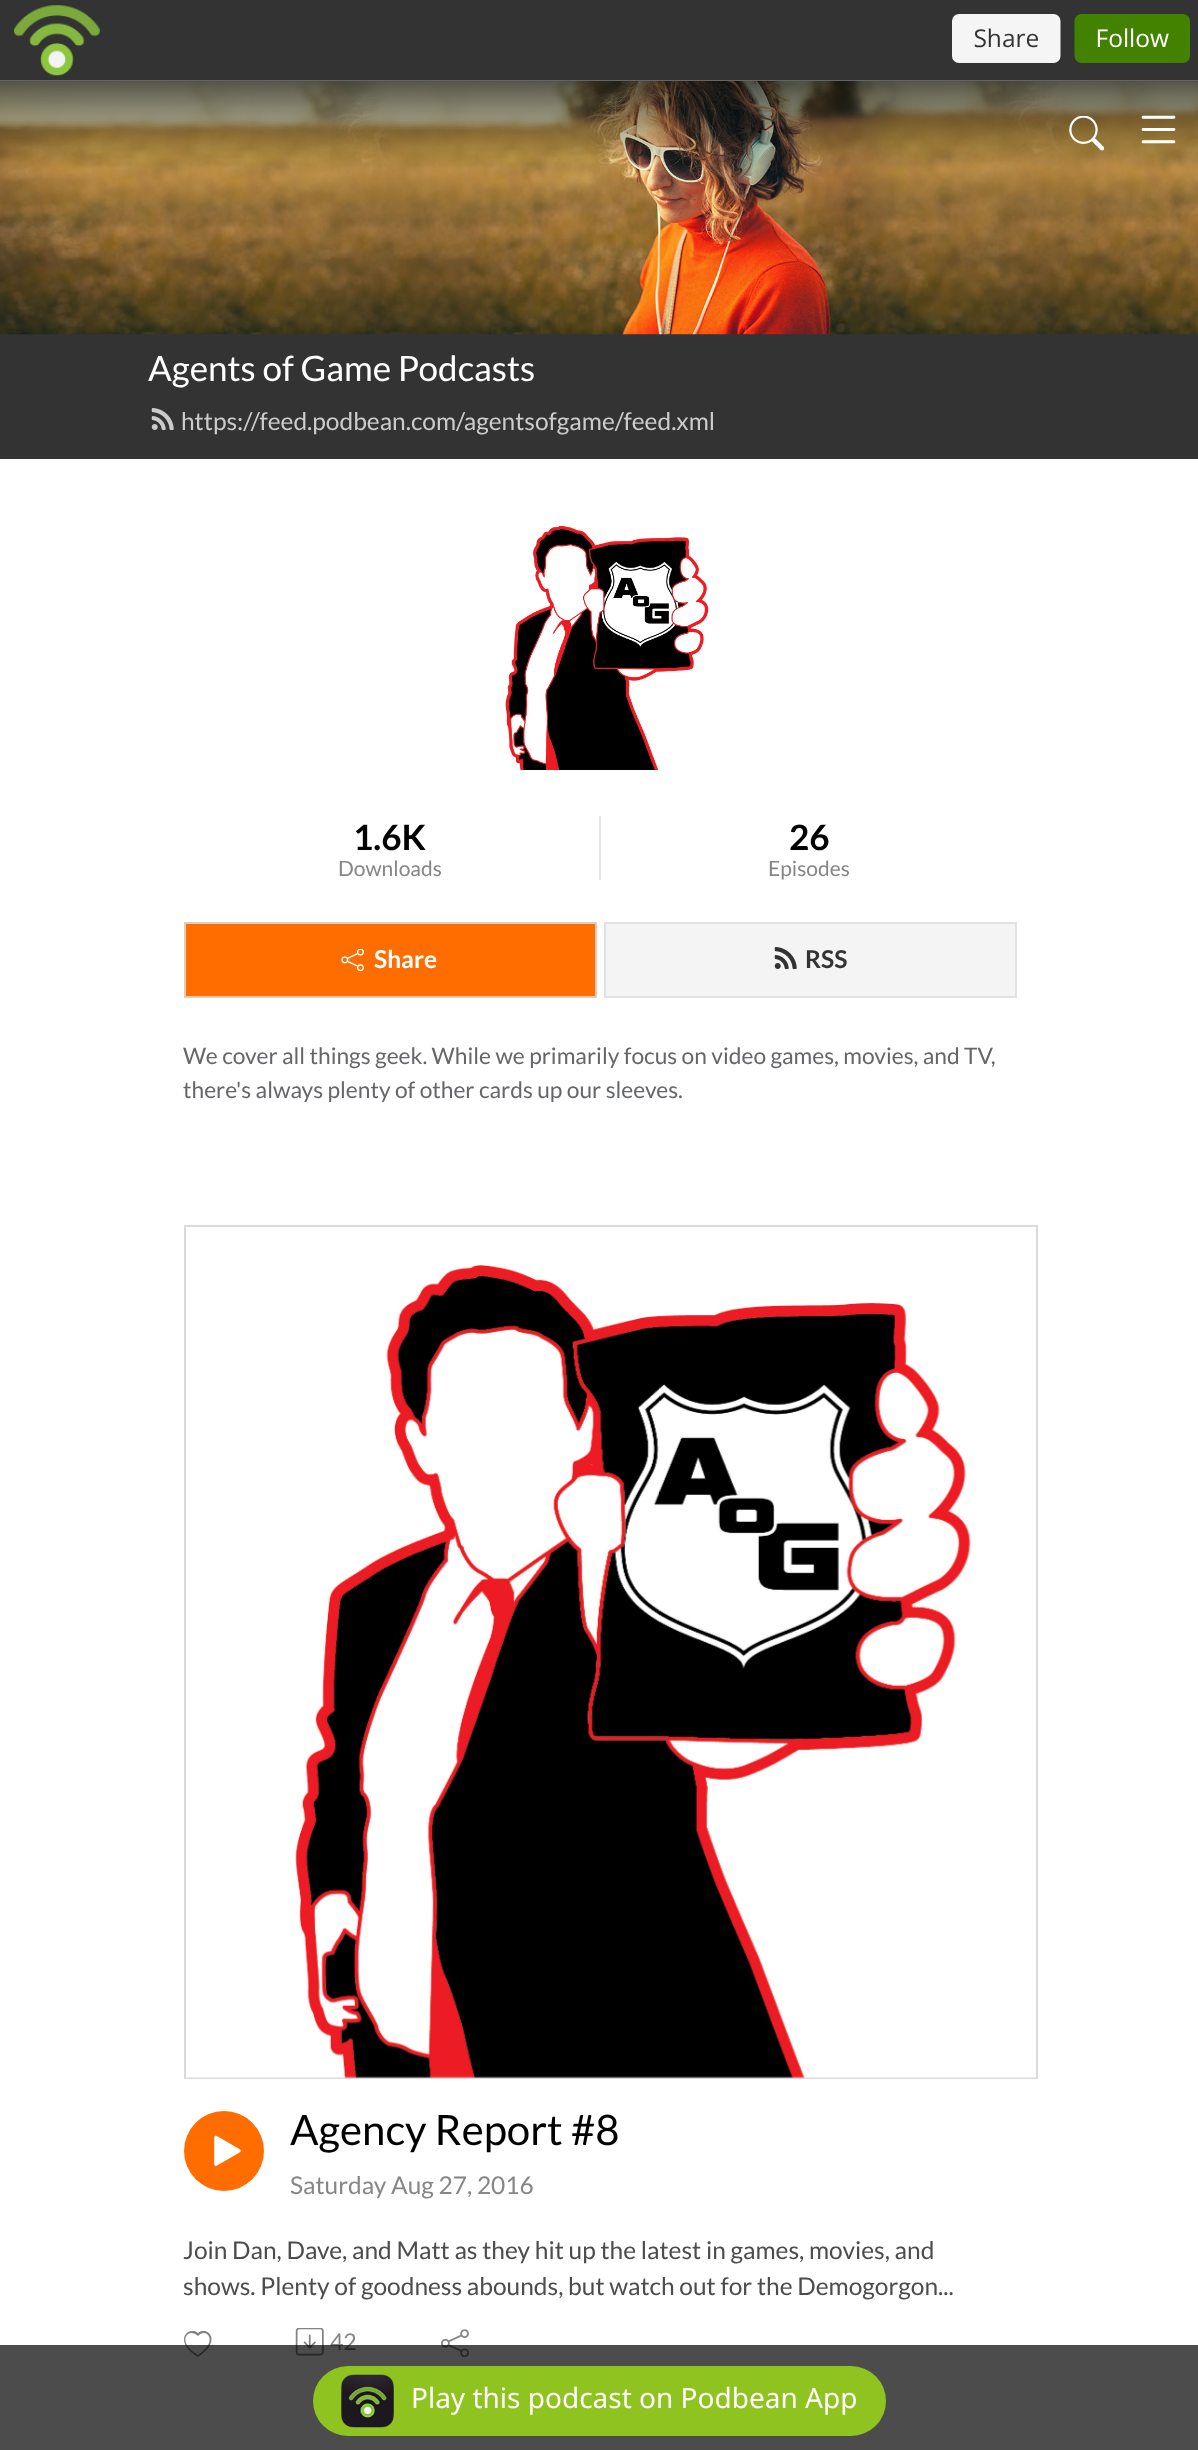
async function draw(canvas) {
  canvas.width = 1198;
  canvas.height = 2450;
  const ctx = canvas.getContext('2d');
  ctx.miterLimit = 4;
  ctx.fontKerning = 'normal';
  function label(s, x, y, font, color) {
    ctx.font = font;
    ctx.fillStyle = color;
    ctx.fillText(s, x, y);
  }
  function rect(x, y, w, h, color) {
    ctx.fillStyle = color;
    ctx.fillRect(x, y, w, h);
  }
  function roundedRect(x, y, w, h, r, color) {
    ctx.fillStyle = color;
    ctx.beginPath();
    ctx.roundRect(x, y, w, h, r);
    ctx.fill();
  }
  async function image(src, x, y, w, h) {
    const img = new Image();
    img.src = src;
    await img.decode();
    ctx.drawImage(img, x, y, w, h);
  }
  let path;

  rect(0, 0, 1198, 2450, '#fff');
  rect(0, 0, 1198, 5, '#333');
  await image('assets/img1.png', 0, 5, 1198, 76);
  rect(0, 334, 1198, 125, '#333');
  await image('assets/img4.png', 0, 81, 1198, 254);
  await image('assets/img2.png', 1069, 116, 35, 35);
  await image('assets/img3.png', 1141, 115, 35, 29);
  label('Agents of Game Podcasts', 148, 381, '35px Lato', '#fff');
  await image('assets/img5.png', 151, 408, 23, 22);
  label('https://feed.podbean.com/agentsofgame/feed.xml', 181, 430, '24.5px Lato', '#ccc');
  await image('assets/img6.png', 505, 525, 204, 245);
  label('1.6K', 353, 850, 'bold 35px Lato', '#000');
  label('Downloads', 338, 876, '21px Lato', '#868686');
  rect(599, 816, 2, 64, '#e6e6e6');
  label('26', 789, 850, 'bold 35px Lato', '#000');
  label('Episodes', 768, 876, '21px Lato', '#868686');
  ctx.fillStyle = '#ff6d00';
  ctx.beginPath();
  ctx.rect(185, 923, 411, 74);
  ctx.fill();
  ctx.strokeStyle = '#e8cbb5';
  ctx.lineWidth = 2;
  ctx.stroke();
  await image('assets/img7.png', 341, 949, 23, 22);
  label('Share', 374, 968, 'bold 24.5px Lato', '#fff');
  ctx.fillStyle = '#f4f4f4';
  ctx.beginPath();
  ctx.rect(605, 923, 411, 74);
  ctx.fill();
  ctx.strokeStyle = '#e2e2e2';
  ctx.stroke();
  await image('assets/img8.png', 774, 947, 23, 22);
  label('RSS', 805, 968, 'bold 24.5px Lato', '#333');
  label('We cover all things geek. While we primarily focus on video games, movies, and TV,', 183, 1064, '22.75px Lato', '#646669');
  label('there\'s always plenty of other cards up our sleeves.', 183, 1098, '22.75px Lato', '#646669');
  ctx.strokeStyle = '#dadada';
  ctx.strokeRect(185, 1226, 852, 852);
  await image('assets/img9.png', 186, 1265, 850, 813);
  ctx.fillStyle = '#ff6d00';
  ctx.beginPath();
  ctx.arc(224, 2151, 40, 0, 2 * Math.PI);
  ctx.fill();
  await image('assets/img10.png', 214, 2135, 27, 31);
  label('Agency Report #8', 290, 2145, '42px Lato', '#000');
  label('Saturday Aug 27, 2016', 290, 2194, '24.5px Lato', '#868686');
  label('Join Dan, Dave, and Matt as they hit up the latest in games, movies, and', 183, 2259, '24.5px Lato', '#4c4c4c');
  label('shows. Plenty of goodness abounds, but watch out for the Demogorgon...', 183, 2295, '24.5px Lato', '#4c4c4c');
  ctx.save();
  ctx.beginPath();
  ctx.rect(180, 2331, 35, 28);
  ctx.clip();
  ctx.fillStyle = '#838383';
  path = new Path2D('M198 2336C191 2329 183 2335 186 2343C188 2348 193 2352 198 2355C202 2352 207 2348 209 2343C212 2335 204 2329 198 2336ZM198 2357C171 2340 190 2325 198 2333C206 2325 224 2340 198 2357Z');
  ctx.fill(path);
  ctx.restore();
  await image('assets/img11.png', 295, 2328, 29, 28);
  label('42', 330, 2350, '23px Lato', '#868686');
  await image('assets/img12.png', 441, 2329, 28, 28);
  rect(0, 2345, 1198, 105, '#000000b3');
  roundedRect(313, 2366, 573, 70, 35, '#8fc31f');
  await image('assets/img13.png', 341, 2374, 53, 54);
  label('Play this podcast on Podbean App', 411, 2408, '28px Noto Sans', '#fff');
}

draw(document.querySelector('canvas'));
